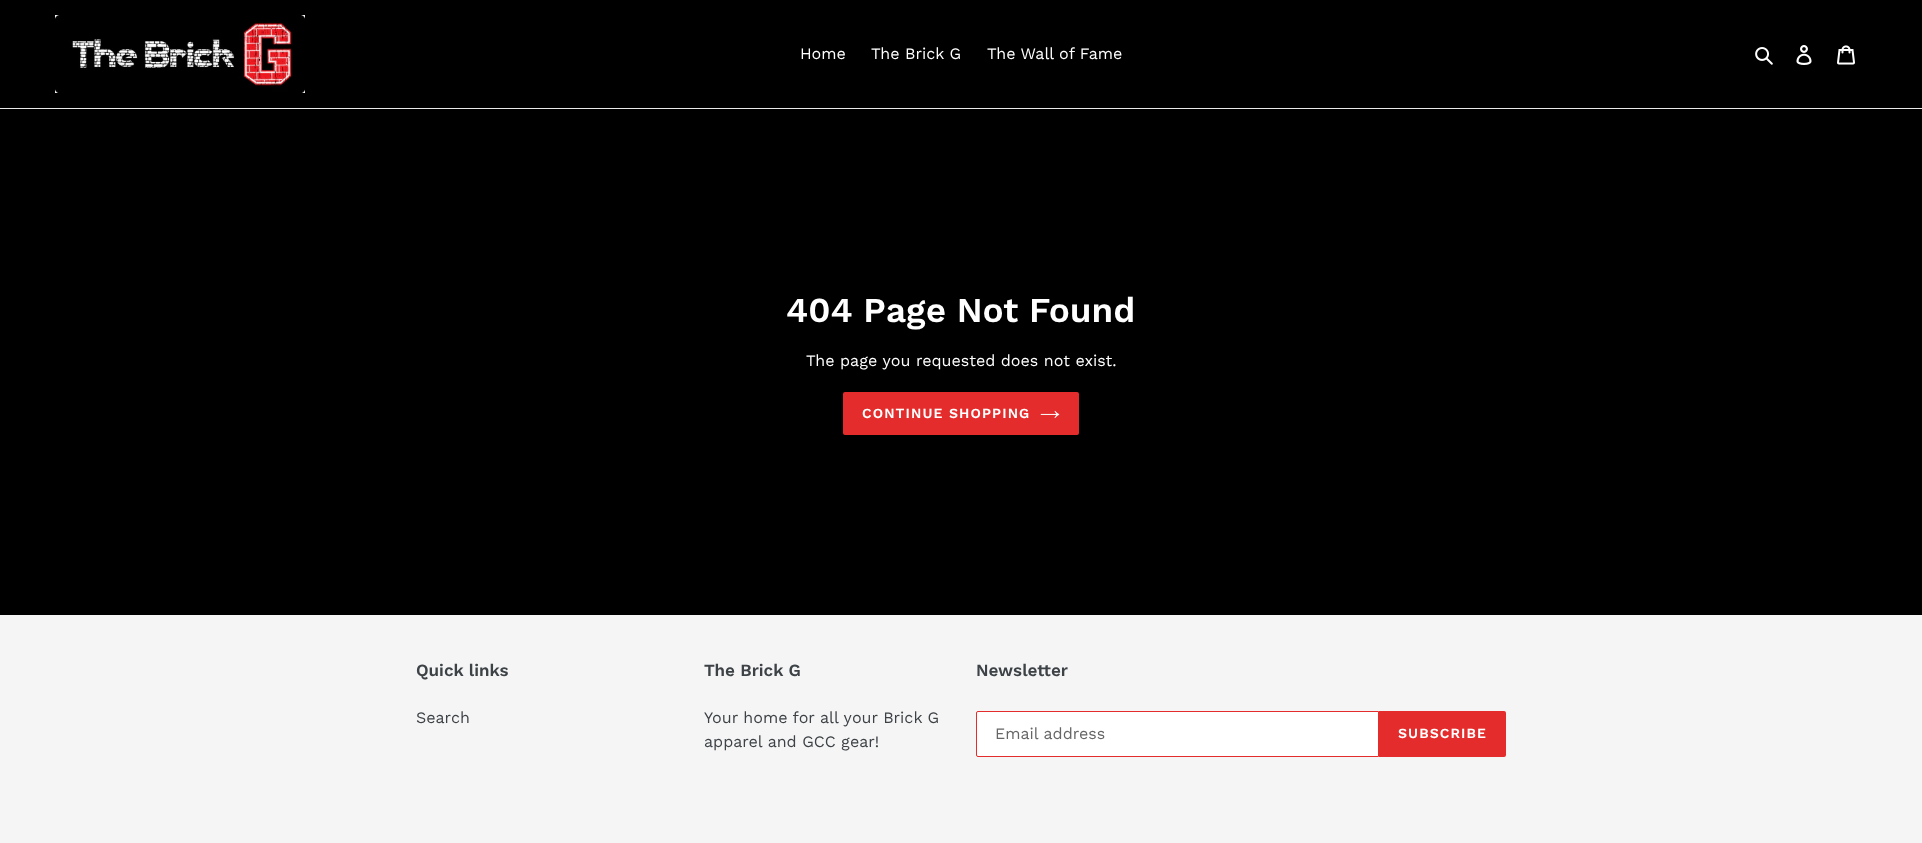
async function draw(canvas) {
  canvas.width = 1922;
  canvas.height = 843;
  const ctx = canvas.getContext('2d');
  ctx.miterLimit = 4;
  ctx.fontKerning = 'normal';
  function label(s, x, y, font, color) {
    ctx.font = font;
    ctx.fillStyle = color;
    ctx.fillText(s, x, y);
  }
  function rect(x, y, w, h, color) {
    ctx.fillStyle = color;
    ctx.fillRect(x, y, w, h);
  }
  function roundedRect(x, y, w, h, r, color) {
    ctx.fillStyle = color;
    ctx.beginPath();
    ctx.roundRect(x, y, w, h, r);
    ctx.fill();
  }
  async function image(src, x, y, w, h) {
    const img = new Image();
    img.src = src;
    await img.decode();
    ctx.drawImage(img, x, y, w, h);
  }

  rect(0, 0, 1922, 843, '#000');
  rect(0, 108, 1922, 1, '#e8e9eb');
  await image('assets/img1.png', 55, 15, 250, 78);
  label('Home', 800, 59, '16px Work Sans', '#fff');
  label('The Brick G', 871, 59, '16px Work Sans', '#fff');
  label('The Wall of Fame', 987, 59, '16px Work Sans', '#fff');
  await image('assets/img2.png', 1755, 47, 18, 18);
  await image('assets/img3.png', 1796, 45, 16, 20);
  await image('assets/img4.png', 1837, 45, 18, 20);
  label('404 Page Not Found', 786, 322, '600 35px Work Sans', '#fff');
  label('The page you requested does not exist.', 806, 366, '16px Work Sans', '#fff');
  roundedRect(843, 392, 236, 43, 2, '#e32c2b');
  ctx.letterSpacing = '1.1px';
  label('CONTINUE SHOPPING', 862, 418, '600 14px Work Sans', '#fff');
  await image('assets/img5.png', 1040, 410, 20, 8);
  rect(0, 615, 1922, 228, '#f5f5f5');
  ctx.letterSpacing = '0px';
  label('Quick links', 416, 676, '600 17px Work Sans', '#3d4246');
  label('Search', 416, 723, '16px Work Sans', '#3d4246');
  label('The Brick G', 704, 676, '600 17px Work Sans', '#3d4246');
  label('Your home for all your Brick G', 704, 723, '16px Work Sans', '#3d4246');
  label('apparel and GCC gear!', 704, 747, '16px Work Sans', '#3d4246');
  label('Newsletter', 976, 676, '600 17px Work Sans', '#3d4246');
  ctx.fillStyle = '#fff';
  ctx.beginPath();
  ctx.roundRect(976.5, 711.5, 402, 45, [1.5, 0, 0, 1.5]);
  ctx.fill();
  ctx.strokeStyle = '#e32c2b';
  ctx.stroke();
  label('Email address', 995, 739, '16px Work Sans', '#666');
  ctx.fillStyle = '#e32c2b';
  ctx.beginPath();
  ctx.roundRect(1379, 711, 127, 46, [0, 2, 2, 0]);
  ctx.fill();
  ctx.letterSpacing = '1.1px';
  label('SUBSCRIBE', 1398, 738, '600 14px Work Sans', '#fff');
}

draw(document.querySelector('canvas'));
